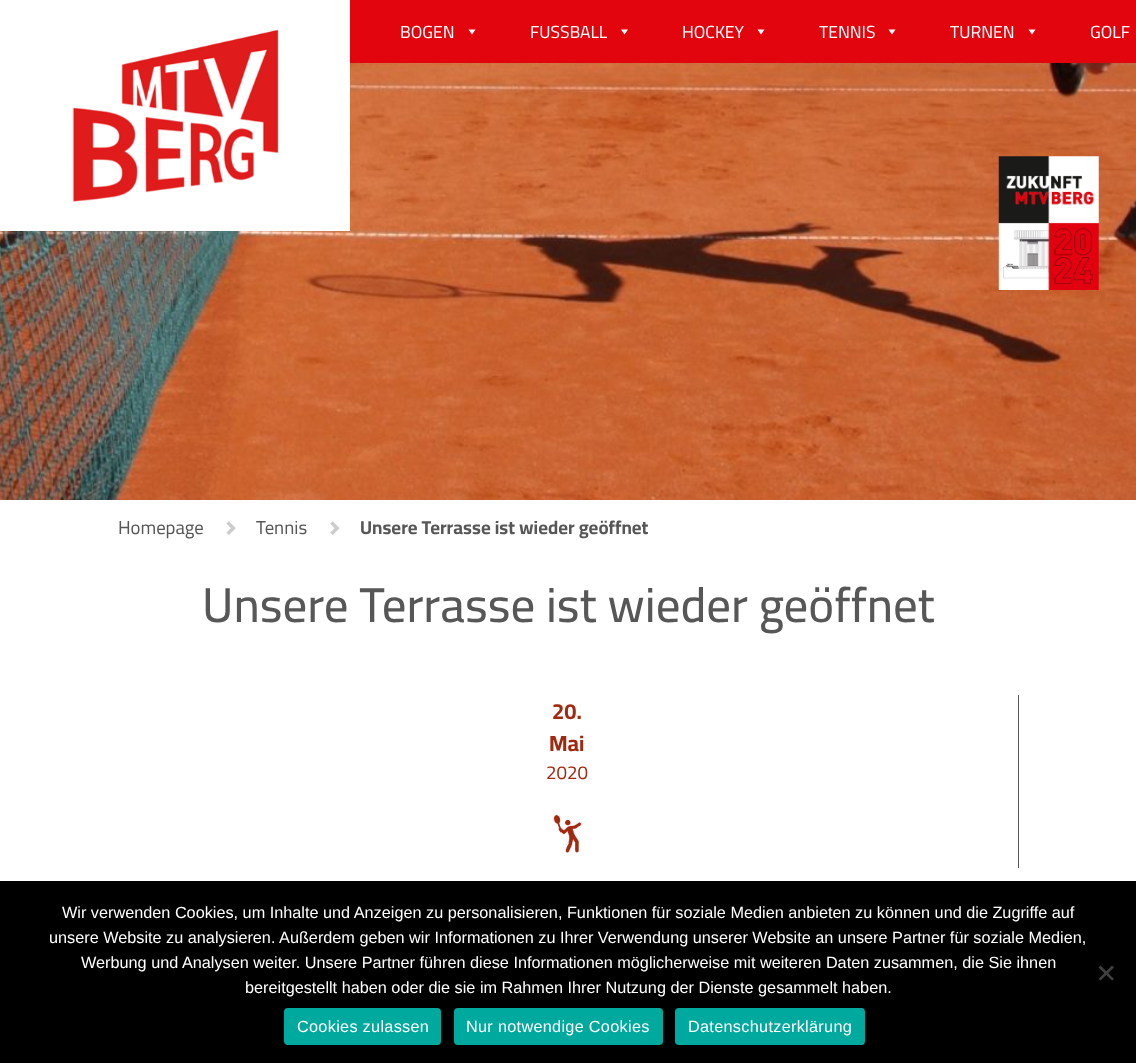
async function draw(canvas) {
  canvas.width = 1136;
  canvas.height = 1063;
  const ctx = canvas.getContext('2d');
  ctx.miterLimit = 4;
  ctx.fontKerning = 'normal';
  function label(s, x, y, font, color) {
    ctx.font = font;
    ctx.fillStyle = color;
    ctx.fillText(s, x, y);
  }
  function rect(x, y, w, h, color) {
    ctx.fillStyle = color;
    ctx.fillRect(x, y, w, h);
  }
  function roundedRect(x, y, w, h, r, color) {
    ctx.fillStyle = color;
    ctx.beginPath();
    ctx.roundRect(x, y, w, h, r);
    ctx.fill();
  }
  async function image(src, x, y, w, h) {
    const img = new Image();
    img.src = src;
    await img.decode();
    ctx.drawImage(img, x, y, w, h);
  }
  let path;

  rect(0, 0, 1136, 1063, '#fff');
  rect(350, 0, 786, 63, '#e3050d');
  await image('assets/img2.png', 0, 63, 1136, 437);
  rect(0, 63, 350, 168, '#fff');
  await image('assets/img1.png', 72, 29, 207, 173);
  label('BOGEN', 400, 38, '17.5px Cairo', '#fff');
  path = new Path2D('M475.5 29.5L472 34.5L468.5 29.5Z');
  ctx.fill(path);
  label('FUSSBALL', 530, 38, '17.5px Cairo', '#fff');
  path = new Path2D('M628 29.5L624.5 34.5L621 29.5Z');
  ctx.fill(path);
  label('HOCKEY', 682, 38, '17.5px Cairo', '#fff');
  path = new Path2D('M764.5 29.5L761 34.5L757.5 29.5Z');
  ctx.fill(path);
  label('TENNIS', 819, 38, '17.5px Cairo', '#fff');
  path = new Path2D('M895.5 29.5L892 34.5L888.5 29.5Z');
  ctx.fill(path);
  label('TURNEN', 950, 38, '17.5px Cairo', '#fff');
  path = new Path2D('M1035.5 29.5L1032 34.5L1028.5 29.5Z');
  ctx.fill(path);
  label('GOLF', 1090, 38, '17.5px Cairo', '#fff');
  await image('assets/img3.png', 998, 156, 101, 134);
  label('Homepage', 118, 534, '18.75px Cairo', '#575757');
  await image('assets/img4.png', 226, 521, 10, 14);
  label('Tennis', 256, 534, '18.75px Cairo', '#575757');
  await image('assets/img5.png', 330, 521, 10, 14);
  label('Unsere Terrasse ist wieder geöffnet', 360, 534, 'bold 18.75px Cairo', '#575757');
  label('Unsere Terrasse ist wieder geöffnet', 202, 622, '500 48.75px Cairo', '#575757');
  rect(1018, 695, 1, 173, '#575757');
  label('20.', 552, 719, 'bold 22px Cairo', '#a02910');
  label('Mai', 549, 751, 'bold 22px Cairo', '#a02910');
  label('2020', 546, 779, '18.75px Cairo', '#a02910');
  await image('assets/img6.png', 553, 815, 29, 38);
  rect(0, 881, 1136, 182, '#000');
  label('Wir verwenden Cookies, um Inhalte und Anzeigen zu personalisieren, Funktionen für soziale Medien anbieten zu können und die Zugriffe auf', 62, 918, '16.25px Liberation Sans', '#fff');
  label('unsere Website zu analysieren. Außerdem geben wir Informationen zu Ihrer Verwendung unserer Website an unsere Partner für soziale Medien,', 49, 943, '16.25px Liberation Sans', '#fff');
  label('Werbung und Analysen weiter. Unsere Partner führen diese Informationen möglicherweise mit weiteren Daten zusammen, die Sie ihnen', 81, 968, '16.25px Liberation Sans', '#fff');
  label('bereitgestellt haben oder die sie im Rahmen Ihrer Nutzung der Dienste gesammelt haben.', 245, 993, '16.25px Liberation Sans', '#fff');
  ctx.fillStyle = '#404040';
  path = new Path2D('M1112 965.5L1114 967.5L1100.5 980.5L1098.5 979Z');
  ctx.fill(path);
  path = new Path2D('M1098.5 967.5L1100.5 965.5L1114 979L1112 980.5Z');
  ctx.fill(path);
  roundedRect(284, 1008, 157, 37, 4, '#00a99d');
  ctx.letterSpacing = '0.3px';
  label('Cookies zulassen', 297, 1032, '16.25px Liberation Sans', '#fff');
  roundedRect(454, 1008, 209, 37, 4, '#00a99d');
  label('Nur notwendige Cookies', 466, 1032, '16.25px Liberation Sans', '#fff');
  roundedRect(675, 1008, 190, 37, 4, '#00a99d');
  label('Datenschutzerklärung', 688, 1032, '16.25px Liberation Sans', '#fff');
}

draw(document.querySelector('canvas'));
